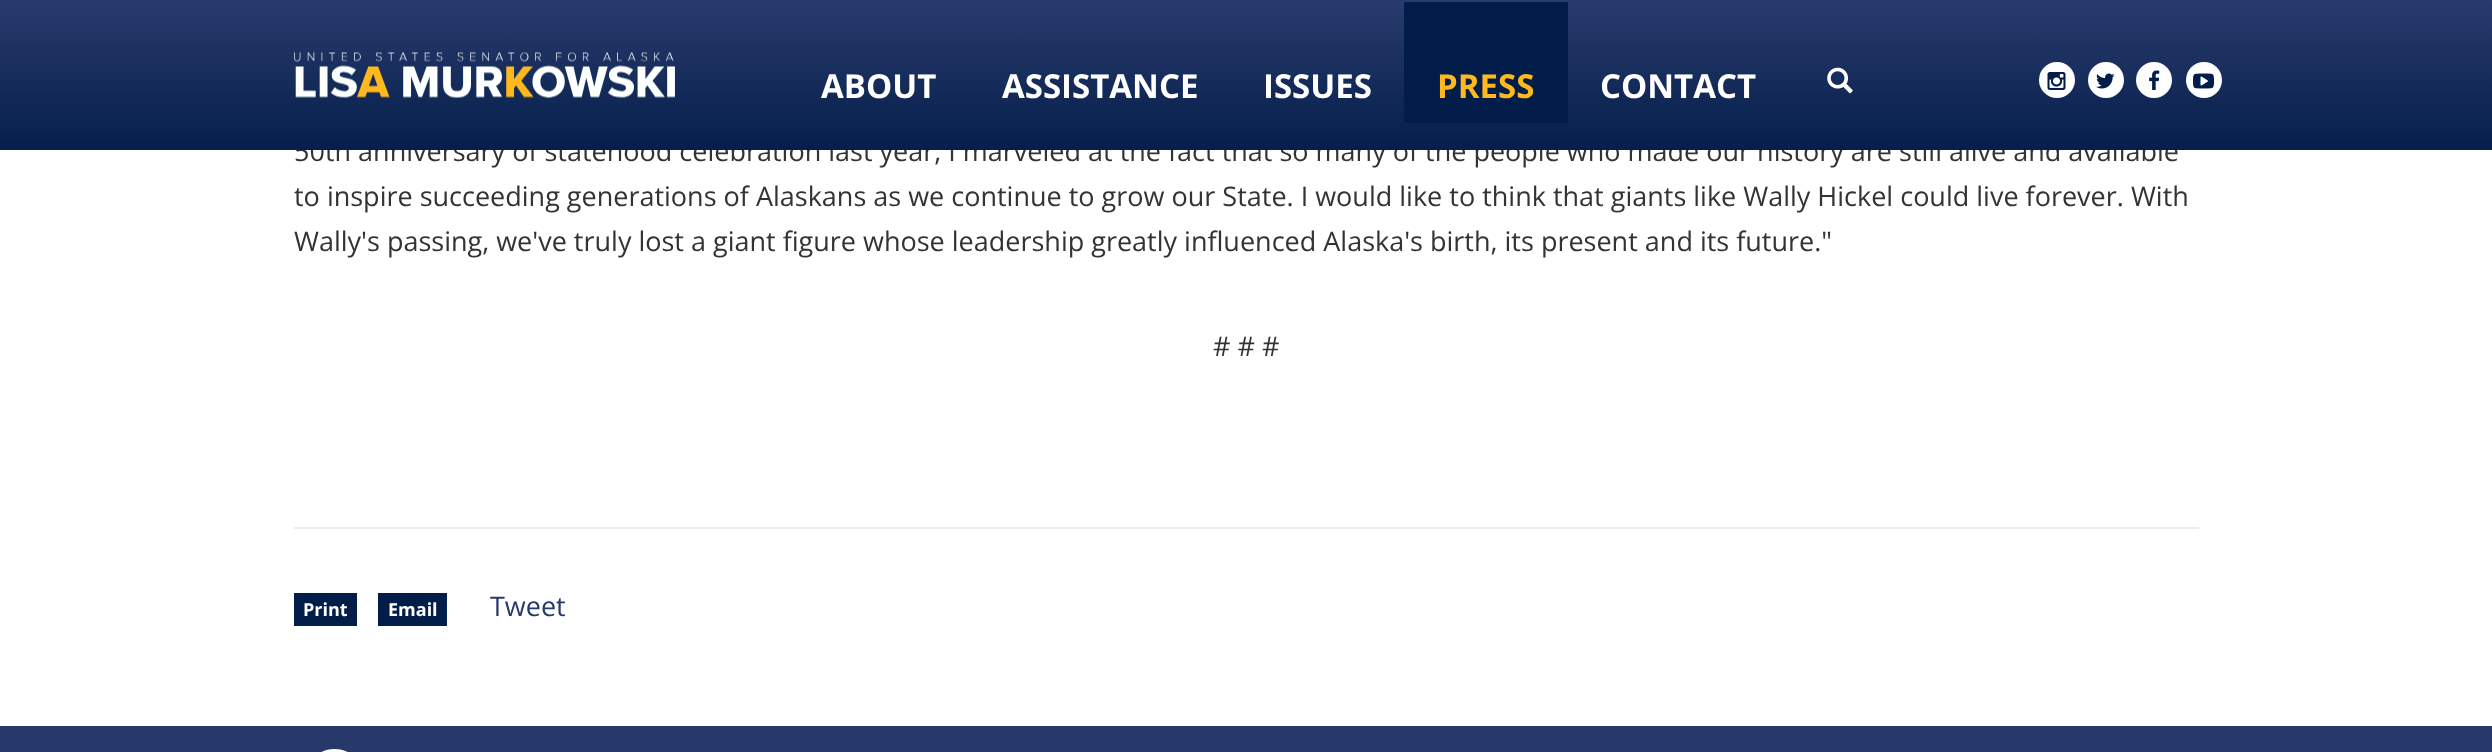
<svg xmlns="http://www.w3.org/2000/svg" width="2492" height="752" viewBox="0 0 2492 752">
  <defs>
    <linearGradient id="g1" gradientUnits="userSpaceOnUse" x1="1247" y1="0" x2="1247" y2="150"><stop offset="0" stop-color="#293b6d"/><stop offset="1" stop-color="#051f4b"/></linearGradient>
  </defs>
  <rect width="100%" height="100%" fill="#ffffff"/>
  <text x="294" y="161" font-family="Open Sans" font-size="27" fill="#333333">50th anniversary of statehood celebration last year, I marveled at the fact that so many of the people who made our history are still alive and available</text>
  <rect x="0" y="0" width="2492" height="150" fill="url(#g1)"/>
  <image x="294" y="52" width="381" height="46" href="img1.png"/>
  <text x="821" y="98" font-family="Open Sans" font-size="33" font-weight="bold" fill="#ffffff">ABOUT</text>
  <text x="1002" y="98" font-family="Open Sans" font-size="33" font-weight="bold" fill="#ffffff">ASSISTANCE</text>
  <text x="1263" y="98" font-family="Open Sans" font-size="33" font-weight="bold" fill="#ffffff">ISSUES</text>
  <rect x="1404" y="2" width="164" height="121" fill="#021d49"/>
  <text x="1437" y="98" font-family="Open Sans" font-size="33" font-weight="bold" fill="#ffb81d">PRESS</text>
  <text x="1600" y="98" font-family="Open Sans" font-size="33" font-weight="bold" fill="#ffffff">CONTACT</text>
  <image x="1827" y="67" width="26" height="27" href="img2.png"/>
  <circle cx="2057" cy="80" r="18" fill="#ffffff"/>
  <image x="2047" y="72" width="19" height="18" href="img3.png"/>
  <circle cx="2106" cy="80" r="18" fill="#ffffff"/>
  <image x="2096" y="73" width="19" height="16" href="img4.png"/>
  <circle cx="2154" cy="80" r="18" fill="#ffffff"/>
  <image x="2149" y="70" width="11" height="20" href="img5.png"/>
  <circle cx="2204" cy="80" r="18" fill="#ffffff"/>
  <image x="2193" y="73" width="21" height="16" href="img6.png"/>
  <text x="294" y="206" font-family="Open Sans" font-size="27" fill="#333333">to inspire succeeding generations of Alaskans as we continue to grow our State. I would like to think that giants like Wally Hickel could live forever. With</text>
  <text x="294" y="251" font-family="Open Sans" font-size="27" fill="#333333">Wally's passing, we've truly lost a giant figure whose leadership greatly influenced Alaska's birth, its present and its future."</text>
  <text x="1213" y="356" font-family="Open Sans" font-size="27" fill="#333333"># # #</text>
  <rect x="294" y="527" width="1905" height="2" fill="#eeeeee"/>
  <rect x="294" y="593" width="63" height="33" fill="#021d49"/>
  <text x="303" y="616" font-family="Open Sans" font-size="18" font-weight="bold" fill="#ffffff">Print</text>
  <rect x="378" y="593" width="69" height="33" fill="#021d49"/>
  <text x="388" y="616" font-family="Open Sans" font-size="18" font-weight="bold" fill="#ffffff">Email</text>
  <text x="490" y="616" font-family="Open Sans" font-size="27" fill="#26396a">Tweet</text>
  <rect x="0" y="726" width="2492" height="26" fill="#26396a"/>
  <rect x="315" y="749" width="39" height="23" rx="19.5" fill="#ffffff"/>
</svg>
